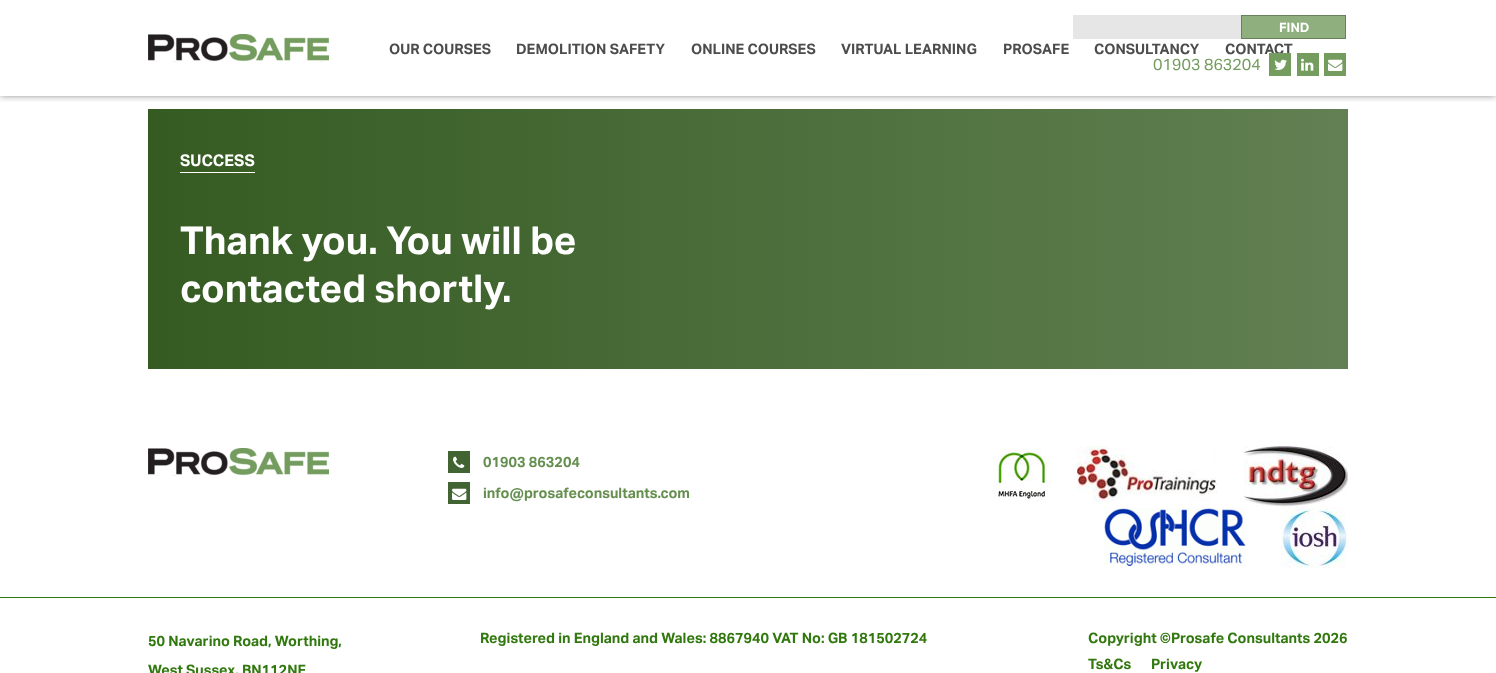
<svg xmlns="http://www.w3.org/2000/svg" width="1496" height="673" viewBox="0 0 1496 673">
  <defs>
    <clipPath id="clip1"><rect x="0" y="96" width="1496" height="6"/></clipPath>
    <filter id="blur1" x="-50%" y="-200%" width="200%" height="500%"><feGaussianBlur stdDeviation="4"/></filter>
    <linearGradient id="g1" gradientUnits="userSpaceOnUse" x1="148" y1="239" x2="1348" y2="239"><stop offset="0" stop-color="#355b22"/><stop offset="1" stop-color="#628053"/></linearGradient>
  </defs>
  <rect width="100%" height="100%" fill="#ffffff"/>
  <g clip-path="url(#clip1)">
    <rect x="0" y="-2" width="1496" height="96" fill="#4c4c4c" filter="url(#blur1)"/>
  </g>
  <rect x="1073" y="15" width="168" height="24" fill="#e6e6e6"/>
  <rect x="1241.5" y="15.5" width="104" height="23" fill="#8fb07e" stroke="#68835b"/>
  <text x="1279" y="32" font-family="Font" font-size="13" font-weight="bold" fill="#ffffff">FIND</text>
  <image x="148" y="34" width="181" height="28" href="img1.png"/>
  <text x="389" y="54" font-family="Font" font-size="14.4" font-weight="bold" fill="#4c4c4c">OUR COURSES</text>
  <text x="516" y="54" font-family="Font" font-size="14.4" font-weight="bold" fill="#4c4c4c">DEMOLITION SAFETY</text>
  <text x="691" y="54" font-family="Font" font-size="14.4" font-weight="bold" fill="#4c4c4c">ONLINE COURSES</text>
  <text x="841" y="54" font-family="Font" font-size="14.4" font-weight="bold" fill="#4c4c4c">VIRTUAL LEARNING</text>
  <text x="1003" y="54" font-family="Font" font-size="14.4" font-weight="bold" fill="#4c4c4c">PROSAFE</text>
  <text x="1094" y="54" font-family="Font" font-size="14.4" font-weight="bold" fill="#4c4c4c">CONSULTANCY</text>
  <text x="1225" y="54" font-family="Font" font-size="14.4" font-weight="bold" fill="#4c4c4c">CONTACT</text>
  <text x="1153" y="70" font-family="Font" font-size="16" fill="#739c5e">01903 863204</text>
  <rect x="1269" y="53" width="22" height="23" fill="#739c5e"/>
  <image x="1274" y="59" width="13" height="11" href="img2.png"/>
  <rect x="1297" y="53" width="22" height="23" fill="#739c5e"/>
  <image x="1301" y="58" width="13" height="13" href="img3.png"/>
  <rect x="1324" y="53" width="22" height="23" fill="#739c5e"/>
  <image x="1328" y="59" width="15" height="12" href="img4.png"/>
  <rect x="148" y="109" width="1200" height="260" fill="url(#g1)"/>
  <rect x="180" y="172" width="75" height="1" fill="#ffffff"/>
  <text x="180" y="166" font-family="Font" font-size="16" font-weight="bold" fill="#ffffff">SUCCESS</text>
  <text x="180" y="254" font-family="Font" font-size="38.4" font-weight="bold" fill="#ffffff">Thank you. You will be</text>
  <text x="180" y="302" font-family="Font" font-size="38.4" font-weight="bold" fill="#ffffff">contacted shortly.</text>
  <image x="148" y="448" width="181" height="28" href="img1.png"/>
  <rect x="448" y="451" width="22" height="22" fill="#426432"/>
  <image x="453" y="456" width="12" height="12" href="img5.png"/>
  <text x="483" y="467" font-family="Font" font-size="14.4" font-weight="bold" fill="#658f4f">01903 863204</text>
  <rect x="448" y="482" width="22" height="22" fill="#426432"/>
  <image x="452" y="488" width="15" height="12" href="img6.png"/>
  <text x="483" y="498" font-family="Font" font-size="14.4" font-weight="bold" fill="#658f4f">info@prosafeconsultants.com</text>
  <image x="993" y="449" width="56" height="54" href="img7.png"/>
  <image x="1077" y="446" width="140" height="61" href="img8.png"/>
  <image x="1244" y="446" width="104" height="61" href="img9.png"/>
  <image x="1104" y="508" width="142" height="58" href="img10.png"/>
  <image x="1281" y="507" width="67" height="61" href="img11.png"/>
  <rect x="0" y="597" width="1496" height="1" fill="#31780e"/>
  <text x="148" y="646" font-family="Font" font-size="14.4" font-weight="bold" fill="#31780e">50 Navarino Road, Worthing,</text>
  <text x="148" y="675" font-family="Font" font-size="14.4" font-weight="bold" fill="#31780e">West Sussex, BN112NF</text>
  <text x="480" y="643" font-family="Font" font-size="14.4" font-weight="bold" fill="#31780e">Registered in England and Wales: 8867940 VAT No: GB 181502724</text>
  <text x="1088" y="643" font-family="Font" font-size="14.4" font-weight="bold" fill="#31780e">Copyright ©Prosafe Consultants 2026</text>
  <text x="1088" y="669" font-family="Font" font-size="14.4" font-weight="bold" fill="#31780e">Ts&amp;Cs</text>
  <text x="1151" y="669" font-family="Font" font-size="14.4" font-weight="bold" fill="#31780e">Privacy</text>
</svg>
